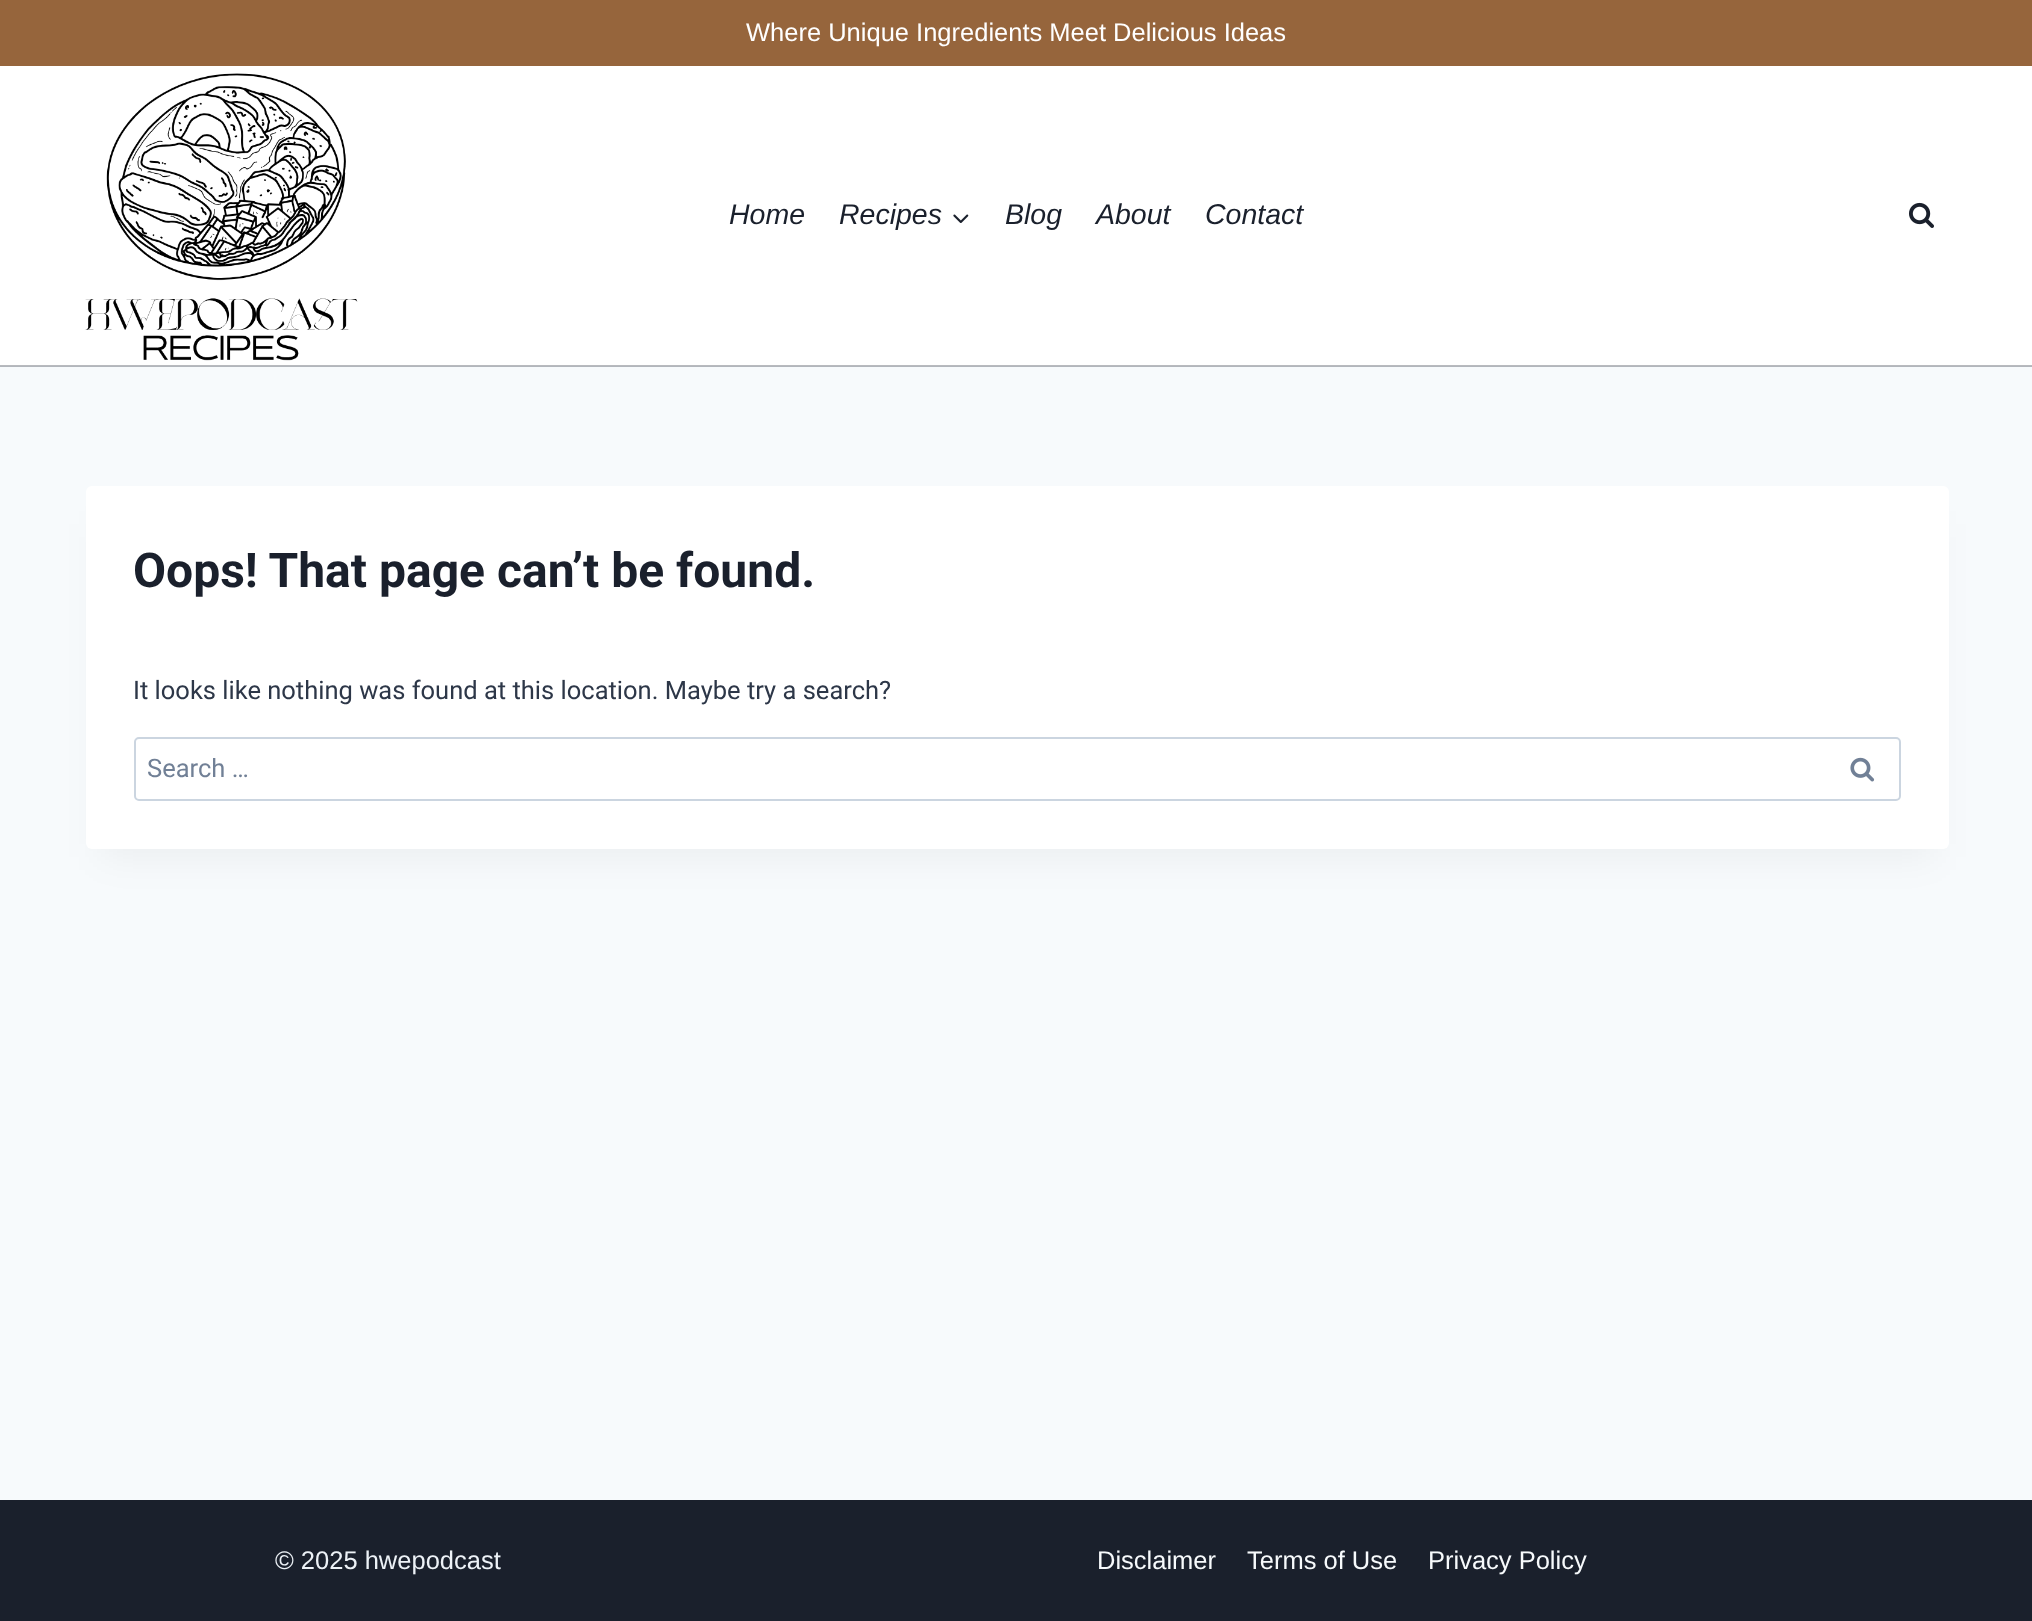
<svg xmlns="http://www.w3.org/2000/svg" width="2032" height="1621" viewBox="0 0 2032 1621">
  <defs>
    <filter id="blur1" x="-50%" y="-200%" width="200%" height="500%"><feGaussianBlur stdDeviation="19"/></filter>
  </defs>
  <rect width="100%" height="100%" fill="#f7fafc"/>
  <rect x="0" y="366" width="2032" height="1" fill="#b2b6bc"/>
  <rect x="0" y="66" width="2032" height="299" fill="#ffffff"/>
  <rect x="0" y="365" width="2032" height="1" fill="#b8babe"/>
  <rect x="0" y="0" width="2032" height="66" fill="#96653c"/>
  <text x="746" y="41" font-family="Liberation Sans" font-size="25.5" fill="#ffffff">Where Unique Ingredients Meet Delicious Ideas</text>
  <image x="85" y="73" width="273" height="288" href="img1.png"/>
  <text x="729" y="224" font-family="Liberation Sans" font-size="28.5" font-style="italic" fill="#1a202c">Home</text>
  <text x="839" y="224" font-family="Liberation Sans" font-size="28.5" font-style="italic" fill="#1a202c">Recipes</text>
  <image x="953" y="214" width="16" height="9" href="img2.png"/>
  <text x="1005" y="224" font-family="Liberation Sans" font-size="28.5" font-style="italic" fill="#1a202c">Blog</text>
  <text x="1096" y="224" font-family="Liberation Sans" font-size="28.5" font-style="italic" fill="#1a202c">About</text>
  <text x="1205" y="224" font-family="Liberation Sans" font-size="28.5" font-style="italic" fill="#1a202c">Contact</text>
  <image x="1909" y="202" width="25" height="26" href="img3.png"/>
  <rect x="101" y="524" width="1833" height="333" fill="#000000" fill-opacity="0.05" filter="url(#blur1)"/>
  <rect x="86" y="486" width="1863" height="363" rx="6" fill="#ffffff"/>
  <text x="133" y="587" font-family="Roboto" font-size="48" font-weight="bold" fill="#1a202c">Oops! That page can’t be found.</text>
  <text x="133" y="699" font-family="Roboto" font-size="25.5" fill="#2d3748">It looks like nothing was found at this location. Maybe try a search?</text>
  <rect x="135" y="738" width="1765" height="62" rx="4" fill="none" stroke="#cbd5e0" stroke-width="2"/>
  <text x="147" y="777" font-family="Roboto" font-size="25.5" fill="#718096">Search …</text>
  <image x="1850" y="757" width="25" height="25" href="img4.png"/>
  <rect x="0" y="1500" width="2032" height="121" fill="#1a202c"/>
  <text x="275" y="1569" font-family="Liberation Sans" font-size="25.5" fill="#edf2f7">© 2025 hwepodcast</text>
  <text x="1097" y="1569" font-family="Liberation Sans" font-size="25.5" fill="#f7fafc">Disclaimer</text>
  <text x="1247" y="1569" font-family="Liberation Sans" font-size="25.5" fill="#f7fafc">Terms of Use</text>
  <text x="1428" y="1569" font-family="Liberation Sans" font-size="25.5" fill="#f7fafc">Privacy Policy</text>
</svg>
